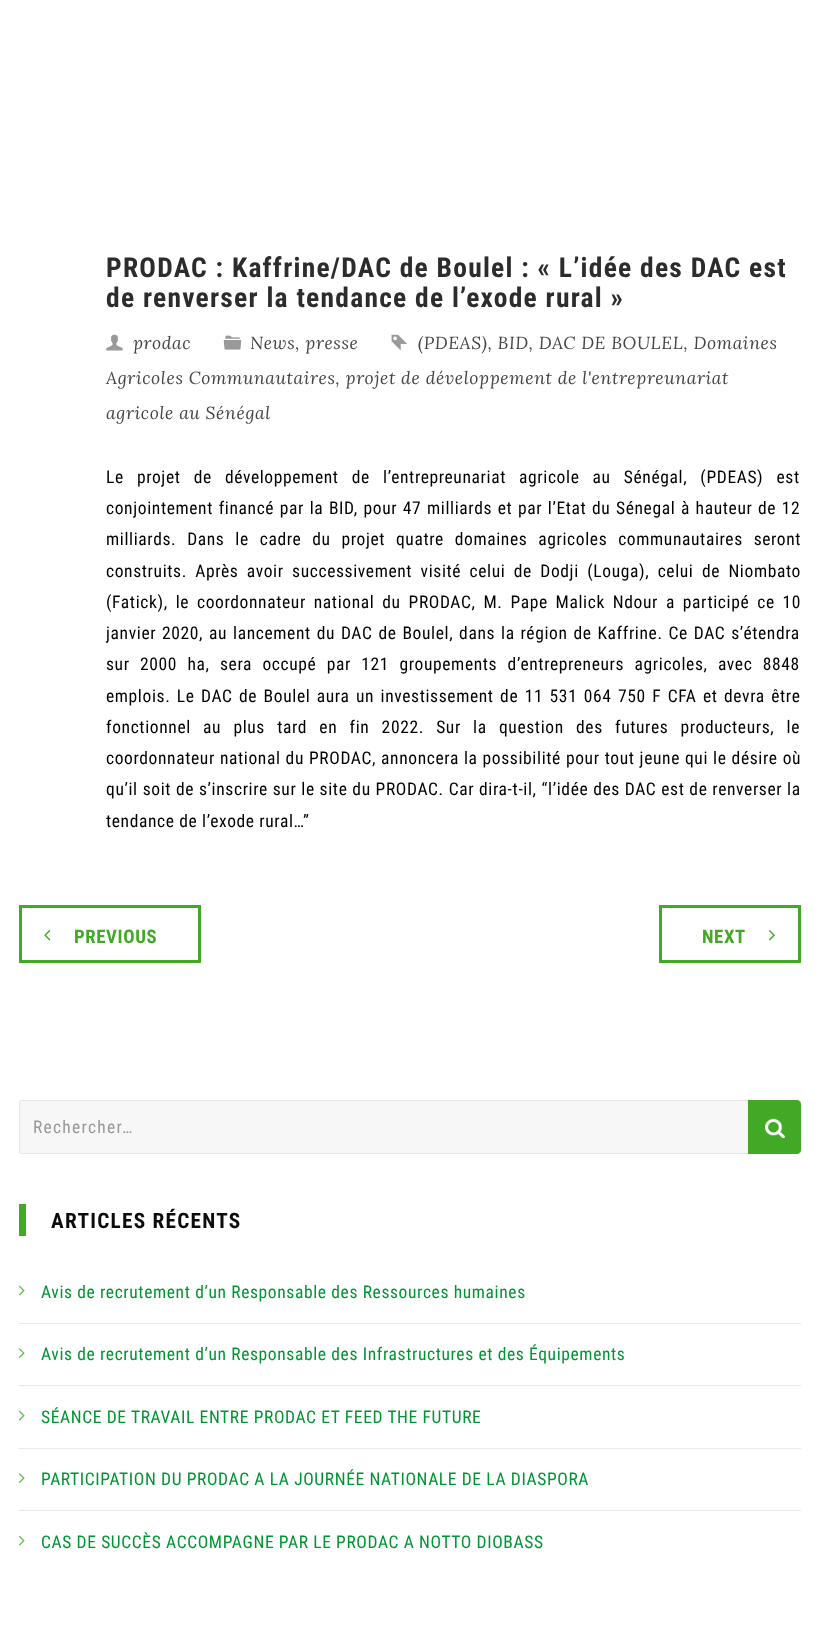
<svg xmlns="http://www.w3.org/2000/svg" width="819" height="1648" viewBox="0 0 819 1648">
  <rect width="100%" height="100%" fill="#ffffff"/>
  <text x="106" y="277" font-family="Roboto Condensed" font-size="27.5" font-weight="bold" letter-spacing="1.25" fill="#2c2c2c">PRODAC : Kaffrine/DAC de Boulel : « L’idée des DAC est</text>
  <text x="106" y="307" font-family="Roboto Condensed" font-size="27.5" font-weight="bold" letter-spacing="1.25" fill="#2c2c2c">de renverser la tendance de l’exode rural »</text>
  <image x="391" y="334" width="16" height="17" href="img1.png"/>
  <text x="418" y="349" font-family="Lora" font-size="17.5" font-style="italic" letter-spacing="0.62" fill="#444444">(PDEAS), BID, DAC DE BOULEL, Domaines</text>
  <text x="106" y="384" font-family="Lora" font-size="17.5" font-style="italic" letter-spacing="0.62" fill="#444444">Agricoles Communautaires, projet de développement de l'entrepreunariat</text>
  <text x="106" y="419" font-family="Lora" font-size="17.5" font-style="italic" letter-spacing="0.62" fill="#444444">agricole au Sénégal</text>
  <image x="106" y="334" width="17" height="17" href="img2.png"/>
  <text x="133" y="349" font-family="Lora" font-size="17.5" font-style="italic" letter-spacing="0.62" fill="#444444">prodac</text>
  <image x="223" y="335" width="19" height="15" href="img3.png"/>
  <text x="250" y="349" font-family="Lora" font-size="17.5" font-style="italic" letter-spacing="0.62" fill="#444444">News, presse</text>
  <text x="106" y="483" word-spacing="8.5" font-family="Roboto Condensed" font-size="17.5" letter-spacing="0.62" fill="#000000">Le projet de développement de l’entrepreunariat agricole au Sénégal, (PDEAS) est</text>
  <text x="106" y="514" word-spacing="1" font-family="Roboto Condensed" font-size="17.5" letter-spacing="0.62" fill="#000000">conjointement financé par la BID, pour 47 milliards et par l’Etat du Sénegal à hauteur de 12</text>
  <text x="106" y="545" word-spacing="6.25" font-family="Roboto Condensed" font-size="17.5" letter-spacing="0.62" fill="#000000">milliards. Dans le cadre du projet quatre domaines agricoles communautaires seront</text>
  <text x="106" y="577" word-spacing="3.75" font-family="Roboto Condensed" font-size="17.5" letter-spacing="0.62" fill="#000000">construits. Après avoir successivement visité celui de Dodji (Louga), celui de Niombato</text>
  <text x="106" y="608" word-spacing="3.25" font-family="Roboto Condensed" font-size="17.5" letter-spacing="0.62" fill="#000000">(Fatick), le coordonnateur national du PRODAC, M. Pape Malick Ndour a participé ce 10</text>
  <text x="106" y="639" word-spacing="1.25" font-family="Roboto Condensed" font-size="17.5" letter-spacing="0.62" fill="#000000">janvier 2020, au lancement du DAC de Boulel, dans la région de Kaffrine. Ce DAC s’étendra</text>
  <text x="106" y="670" word-spacing="5.75" font-family="Roboto Condensed" font-size="17.5" letter-spacing="0.62" fill="#000000">sur 2000 ha, sera occupé par 121 groupements d’entrepreneurs agricoles, avec 8848</text>
  <text x="106" y="702" word-spacing="1.8" font-family="Roboto Condensed" font-size="17.5" letter-spacing="0.62" fill="#000000">emplois. Le DAC de Boulel aura un investissement de 11 531 064 750 F CFA et devra être</text>
  <text x="106" y="733" word-spacing="7.6" font-family="Roboto Condensed" font-size="17.5" letter-spacing="0.62" fill="#000000">fonctionnel au plus tard en fin 2022. Sur la question des futures producteurs, le</text>
  <text x="106" y="764" word-spacing="0.4" font-family="Roboto Condensed" font-size="17.5" letter-spacing="0.62" fill="#000000">coordonnateur national du PRODAC, annoncera la possibilité pour tout jeune qui le désire où</text>
  <text x="106" y="795" word-spacing="0.25" font-family="Roboto Condensed" font-size="17.5" letter-spacing="0.62" fill="#000000">qu’il soit de s’inscrire sur le site du PRODAC. Car dira-t-il, “l’idée des DAC est de renverser la</text>
  <text x="106" y="827" font-family="Roboto Condensed" font-size="17.5" letter-spacing="0.62" fill="#000000">tendance de l’exode rural…”</text>
  <rect x="20.5" y="906.5" width="179" height="55" fill="none" stroke="#42a926" stroke-width="3"/>
  <image x="44" y="930" width="7" height="11" href="img4.png"/>
  <text x="74" y="943" font-family="Roboto Condensed" font-size="18.75" font-weight="bold" letter-spacing="0.62" fill="#42a926">PREVIOUS</text>
  <rect x="660.5" y="906.5" width="139" height="55" fill="none" stroke="#42a926" stroke-width="3"/>
  <text x="702" y="943" font-family="Roboto Condensed" font-size="18.75" font-weight="bold" letter-spacing="0.62" fill="#42a926">NEXT</text>
  <image x="768" y="930" width="7" height="11" href="img5.png"/>
  <rect x="19.5" y="1100.5" width="781" height="53" rx="2" fill="#f7f7f7" stroke="#e5e5e5"/>
  <text x="33" y="1133" font-family="Roboto Condensed" font-size="17.5" letter-spacing="1.25" fill="#999999">Rechercher…</text>
  <path d="M748 1100H797C799 1100 801 1102 801 1104V1150C801 1152 799 1154 797 1154H748Z" fill="#42a926"/>
  <image x="765" y="1118" width="20" height="21" href="img6.png"/>
  <rect x="19" y="1204" width="7" height="32" fill="#42a926"/>
  <text x="51" y="1228" font-family="Roboto Condensed" font-size="21.25" font-weight="bold" letter-spacing="1.25" fill="#0c0c0c">ARTICLES RÉCENTS</text>
  <image x="18" y="1285" width="7" height="11" href="img7.png"/>
  <text x="41" y="1298" font-family="Roboto Condensed" font-size="17.5" letter-spacing="0.62" fill="#009533">Avis de recrutement d’un Responsable des Ressources humaines</text>
  <rect x="19" y="1323" width="782" height="1" fill="#e9e9e9"/>
  <image x="18" y="1348" width="7" height="10" href="img8.png"/>
  <text x="41" y="1360" font-family="Roboto Condensed" font-size="17.5" letter-spacing="0.62" fill="#009533">Avis de recrutement d’un Responsable des Infrastructures et des Équipements</text>
  <rect x="19" y="1385" width="782" height="1" fill="#e9e9e9"/>
  <image x="18" y="1410" width="7" height="11" href="img7.png"/>
  <text x="41" y="1423" font-family="Roboto Condensed" font-size="17.5" letter-spacing="0.62" fill="#009533">SÉANCE DE TRAVAIL ENTRE PRODAC ET FEED THE FUTURE</text>
  <rect x="19" y="1448" width="782" height="1" fill="#e9e9e9"/>
  <image x="18" y="1473" width="7" height="10" href="img8.png"/>
  <text x="41" y="1485" font-family="Roboto Condensed" font-size="17.5" letter-spacing="0.62" fill="#009533">PARTICIPATION DU PRODAC A LA JOURNÉE NATIONALE DE LA DIASPORA</text>
  <rect x="19" y="1510" width="782" height="1" fill="#e9e9e9"/>
  <image x="18" y="1535" width="7" height="11" href="img7.png"/>
  <text x="41" y="1548" font-family="Roboto Condensed" font-size="17.5" letter-spacing="0.62" fill="#009533">CAS DE SUCCÈS ACCOMPAGNE PAR LE PRODAC A NOTTO DIOBASS</text>
</svg>
